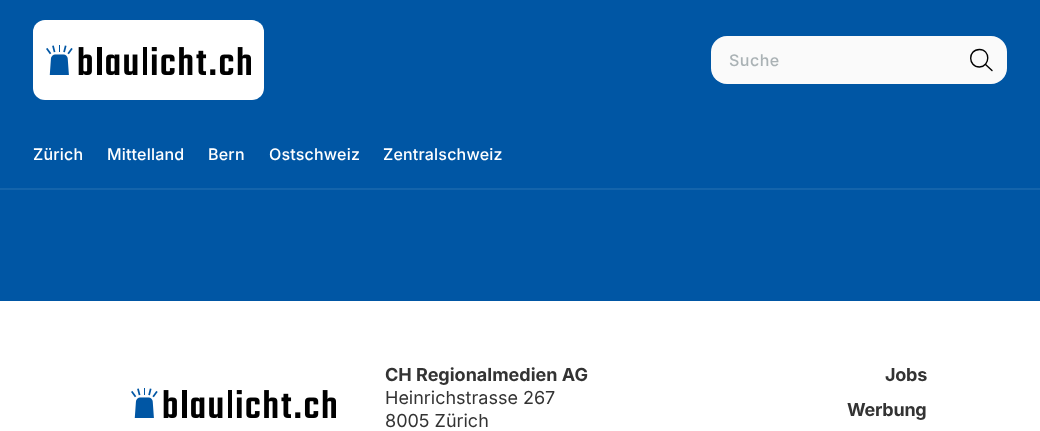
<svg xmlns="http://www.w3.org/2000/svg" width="1040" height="431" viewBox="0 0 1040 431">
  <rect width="100%" height="100%" fill="#0056a4"/>
  <rect x="0" y="188" width="1040" height="2" fill="#1464ab"/>
  <rect x="33" y="20" width="231" height="80" rx="12" fill="#ffffff"/>
  <image x="46" y="45" width="205" height="30" href="img1.png"/>
  <rect x="711" y="36" width="296" height="48" rx="16" fill="#fafafa"/>
  <text x="729" y="66" font-family="Inter" font-size="16" font-weight="500" letter-spacing="0.5" fill="#aab2b5">Suche</text>
  <path d="M979.5 49.5C967.5 49.5 968 67 979.5 67C990.5 66.5 990.5 49.5 979.5 49.5Z" fill="none" stroke="#000000" stroke-width="1.4"/>
  <path d="M985.5 64.5L992 70.5" fill="none" stroke="#000000" stroke-width="1.4" stroke-linecap="round"/>
  <text x="33" y="160" font-family="Inter" font-size="16" font-weight="500" letter-spacing="0.2" fill="#ffffff">Zürich</text>
  <text x="107" y="160" font-family="Inter" font-size="16" font-weight="500" letter-spacing="0.2" fill="#ffffff">Mittelland</text>
  <text x="208" y="160" font-family="Inter" font-size="16" font-weight="500" letter-spacing="0.2" fill="#ffffff">Bern</text>
  <text x="269" y="160" font-family="Inter" font-size="16" font-weight="500" letter-spacing="0.2" fill="#ffffff">Ostschweiz</text>
  <text x="383" y="160" font-family="Inter" font-size="16" font-weight="500" letter-spacing="0.2" fill="#ffffff">Zentralschweiz</text>
  <rect x="0" y="301" width="1040" height="130" fill="#ffffff"/>
  <image x="131" y="388" width="205" height="30" href="img1.png"/>
  <text x="385" y="381" font-family="Inter" font-size="18" font-weight="bold" fill="#333333">CH Regionalmedien AG</text>
  <text x="385" y="404" font-family="Inter" font-size="18" fill="#333333">Heinrichstrasse 267</text>
  <text x="385" y="427" font-family="Inter" font-size="18" fill="#333333">8005 Zürich</text>
  <text x="885" y="381" font-family="Inter" font-size="18" font-weight="bold" letter-spacing="-0.25" fill="#333333">Jobs</text>
  <text x="847" y="416" font-family="Inter" font-size="18" font-weight="bold" letter-spacing="-0.25" fill="#333333">Werbung</text>
</svg>
